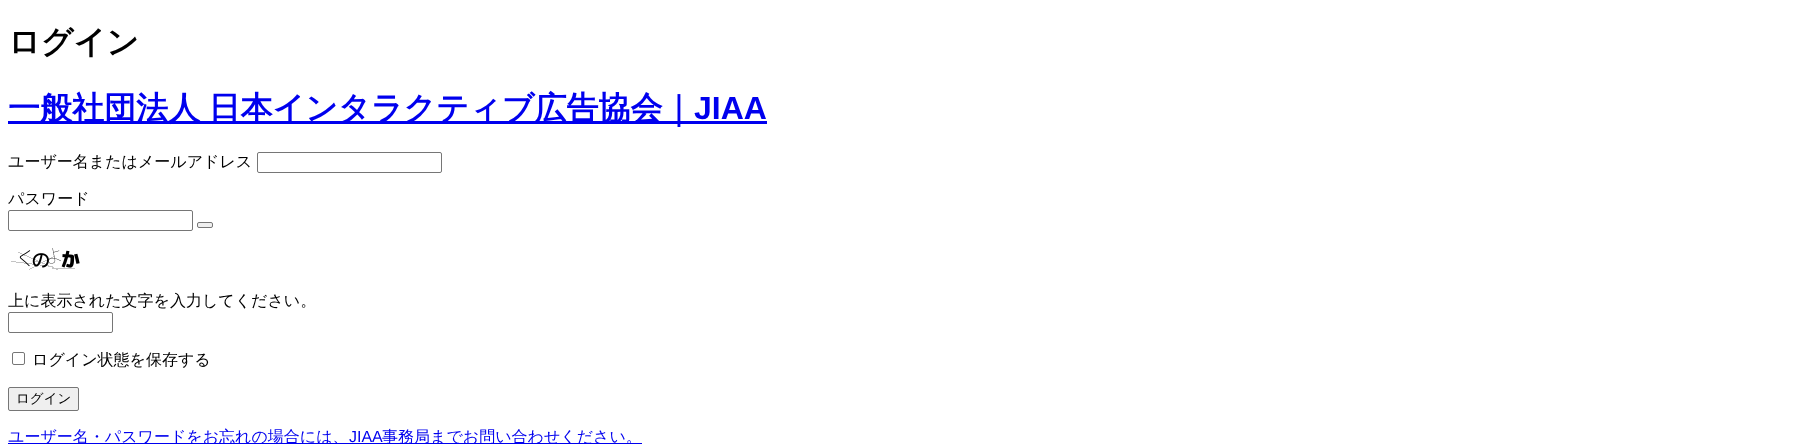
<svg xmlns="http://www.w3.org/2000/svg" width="1798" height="444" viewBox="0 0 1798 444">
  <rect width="100%" height="100%" fill="#ffffff"/>
  <text x="8" y="53" font-family="WenQuanYi Zen Hei" font-size="32" font-weight="bold" fill="#000000">ログイン</text>
  <rect x="8" y="121" width="759" height="3" fill="#0000ee"/>
  <text x="8" y="119" word-spacing="-1" font-family="WenQuanYi Zen Hei" font-size="32" font-weight="bold" fill="#0000ee">一般社団法人 日本インタラクティブ広告協会｜</text>
  <text x="694" y="119" font-family="Liberation Sans" font-size="32" font-weight="bold" fill="#0000ee">JIAA</text>
  <text x="8" y="167" font-family="WenQuanYi Zen Hei" font-size="16" font-weight="500" fill="#000000">ユーザー名またはメールアドレス</text>
  <rect x="257.5" y="152.5" width="184" height="20" rx="1.5" fill="none" stroke="#767676"/>
  <text x="8" y="204" font-family="WenQuanYi Zen Hei" font-size="16" font-weight="500" fill="#000000">パスワード</text>
  <rect x="8.5" y="210.5" width="184" height="20" rx="1.5" fill="none" stroke="#767676"/>
  <rect x="197.5" y="222.5" width="15" height="5" rx="1.5" fill="#efefef" stroke="#767676"/>
  <image x="11" y="248" width="69" height="22" href="img1.png"/>
  <text x="8" y="306" font-family="WenQuanYi Zen Hei" font-size="16" font-weight="500" fill="#000000">上に表示された文字を入力してください。</text>
  <rect x="8.5" y="312.5" width="104" height="20" rx="1.5" fill="none" stroke="#767676"/>
  <rect x="12.5" y="352.5" width="12" height="12" rx="1.5" fill="none" stroke="#767676"/>
  <text x="32" y="365" font-family="WenQuanYi Zen Hei" font-size="16" font-weight="500" fill="#000000">ログイン状態を保存する</text>
  <rect x="8.5" y="387.5" width="70" height="23" rx="1.5" fill="#efefef" stroke="#767676"/>
  <text x="16" y="403" font-family="WenQuanYi Zen Hei" font-size="13.5" font-weight="500" fill="#000000">ログイン</text>
  <rect x="8" y="443" width="634" height="1" fill="#0000ee"/>
  <text x="8" y="442" font-family="WenQuanYi Zen Hei" font-size="16" font-weight="500" fill="#0000ee">ユーザー名・パスワードをお忘れの場合には、</text>
  <text x="349" y="442" font-family="Liberation Sans" font-size="16" fill="#0000ee">JIAA</text>
  <text x="382" y="442" font-family="WenQuanYi Zen Hei" font-size="16" font-weight="500" fill="#0000ee">事務局までお問い合わせください。</text>
</svg>
